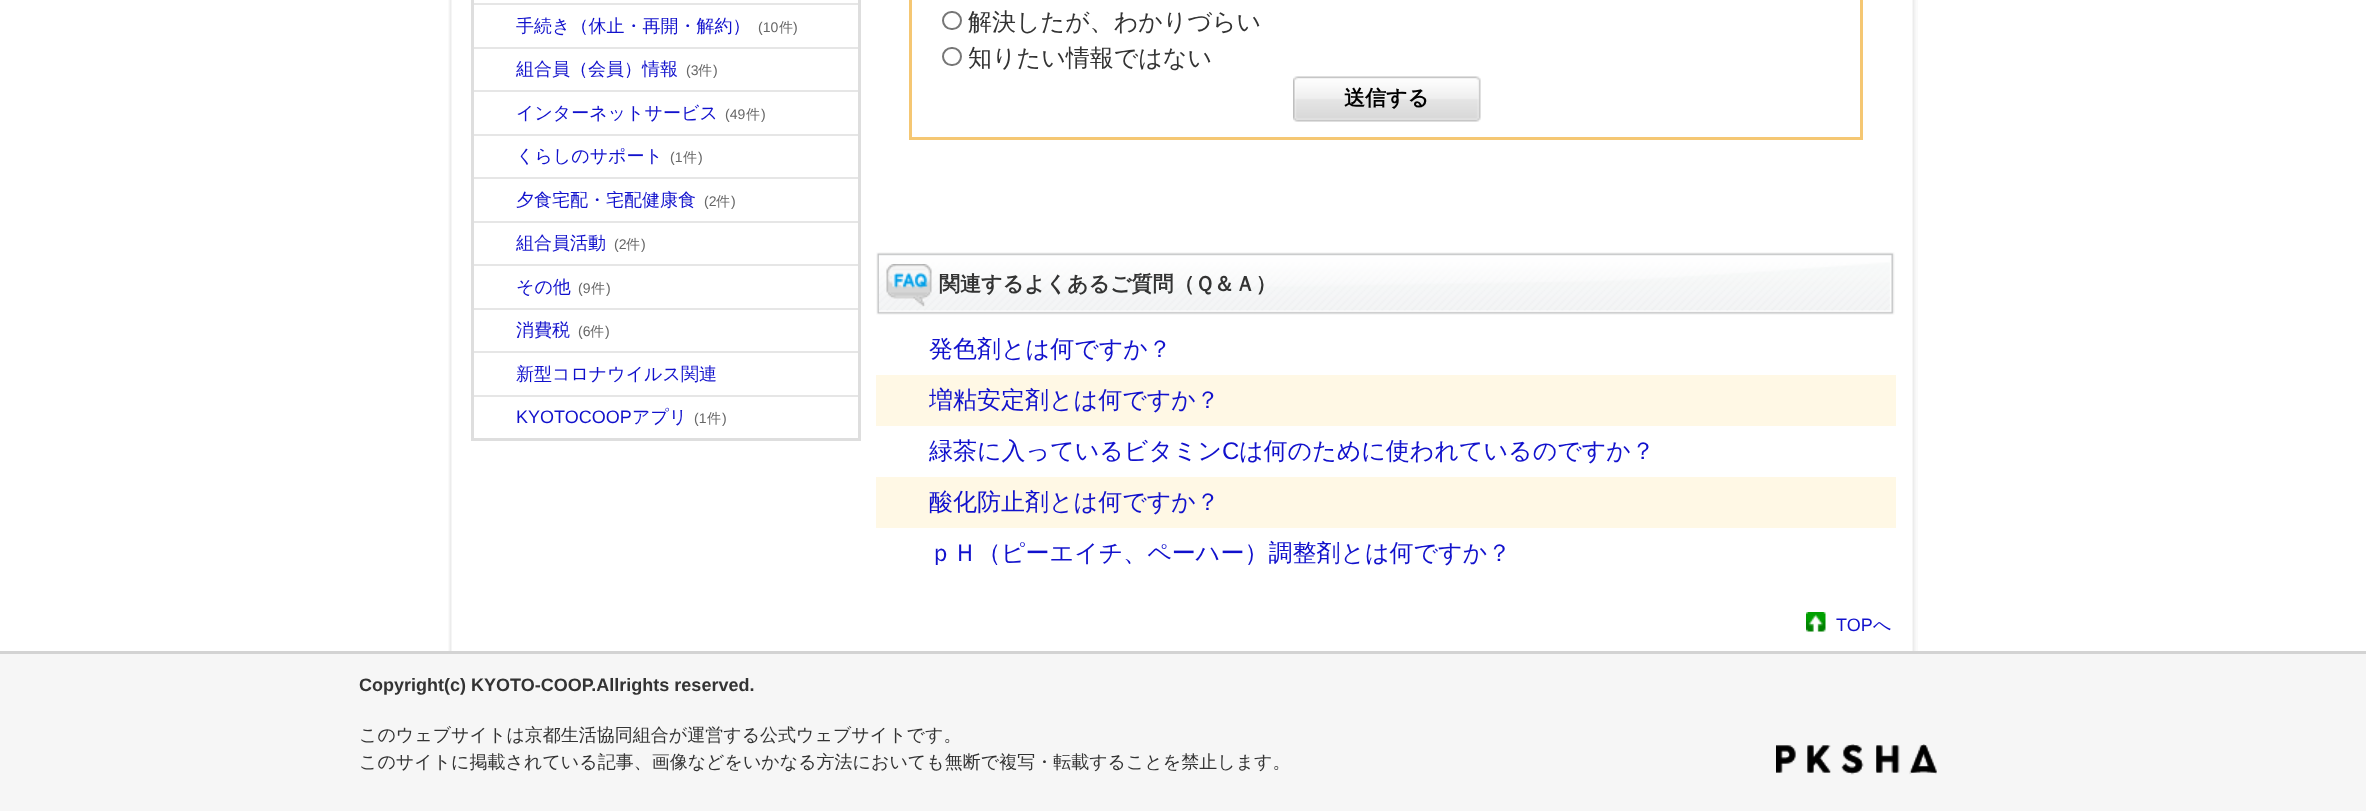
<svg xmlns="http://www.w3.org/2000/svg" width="2366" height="811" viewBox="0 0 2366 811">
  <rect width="100%" height="100%" fill="#f6f6f6"/>
  <rect x="0" y="0" width="2366" height="651" fill="#ffffff"/>
  <image x="1912" y="0" width="6" height="651" href="img1.png"/>
  <image x="448" y="0" width="4" height="651" href="img2.png"/>
  <rect x="471" y="0" width="390" height="441" fill="#dedede"/>
  <rect x="474" y="0" width="384" height="438" fill="#ffffff"/>
  <rect x="474" y="3" width="384" height="2" fill="#e6e6e6"/>
  <text x="516" y="32" font-family="WenQuanYi Zen Hei" font-size="18" font-weight="500" fill="#1111cc">手続き（休止・再開・解約）</text>
  <text x="758" y="32" font-family="Liberation Sans" font-size="14" fill="#666666">(10</text>
  <text x="779" y="32" font-family="WenQuanYi Zen Hei" font-size="14" font-weight="500" fill="#666666">件</text>
  <text x="793" y="32" font-family="Liberation Sans" font-size="14" fill="#666666">)</text>
  <rect x="474" y="47" width="384" height="2" fill="#e6e6e6"/>
  <text x="516" y="75" font-family="WenQuanYi Zen Hei" font-size="18" font-weight="500" fill="#1111cc">組合員（会員）情報</text>
  <text x="686" y="75" font-family="Liberation Sans" font-size="14" fill="#666666">(3</text>
  <text x="698" y="75" font-family="WenQuanYi Zen Hei" font-size="14" font-weight="500" fill="#666666">件</text>
  <text x="713" y="75" font-family="Liberation Sans" font-size="14" fill="#666666">)</text>
  <rect x="474" y="90" width="384" height="2" fill="#e6e6e6"/>
  <text x="516" y="119" font-family="WenQuanYi Zen Hei" font-size="18" font-weight="500" fill="#1111cc">インターネットサービス</text>
  <text x="725" y="119" font-family="Liberation Sans" font-size="14" fill="#666666">(49</text>
  <text x="746" y="119" font-family="WenQuanYi Zen Hei" font-size="14" font-weight="500" fill="#666666">件</text>
  <text x="761" y="119" font-family="Liberation Sans" font-size="14" fill="#666666">)</text>
  <rect x="474" y="134" width="384" height="2" fill="#e6e6e6"/>
  <text x="516" y="162" font-family="WenQuanYi Zen Hei" font-size="18" font-weight="500" fill="#1111cc">くらしのサポート</text>
  <text x="670" y="162" font-family="Liberation Sans" font-size="14" fill="#666666">(1</text>
  <text x="683" y="162" font-family="WenQuanYi Zen Hei" font-size="14" font-weight="500" fill="#666666">件</text>
  <text x="698" y="162" font-family="Liberation Sans" font-size="14" fill="#666666">)</text>
  <rect x="474" y="177" width="384" height="2" fill="#e6e6e6"/>
  <text x="516" y="206" font-family="WenQuanYi Zen Hei" font-size="18" font-weight="500" fill="#1111cc">夕食宅配・宅配健康食</text>
  <text x="704" y="206" font-family="Liberation Sans" font-size="14" fill="#666666">(2</text>
  <text x="716" y="206" font-family="WenQuanYi Zen Hei" font-size="14" font-weight="500" fill="#666666">件</text>
  <text x="731" y="206" font-family="Liberation Sans" font-size="14" fill="#666666">)</text>
  <rect x="474" y="221" width="384" height="2" fill="#e6e6e6"/>
  <text x="516" y="249" font-family="WenQuanYi Zen Hei" font-size="18" font-weight="500" fill="#1111cc">組合員活動</text>
  <text x="614" y="249" font-family="Liberation Sans" font-size="14" fill="#666666">(2</text>
  <text x="626" y="249" font-family="WenQuanYi Zen Hei" font-size="14" font-weight="500" fill="#666666">件</text>
  <text x="641" y="249" font-family="Liberation Sans" font-size="14" fill="#666666">)</text>
  <rect x="474" y="264" width="384" height="2" fill="#e6e6e6"/>
  <text x="516" y="293" font-family="WenQuanYi Zen Hei" font-size="18" font-weight="500" fill="#1111cc">その他</text>
  <text x="578" y="293" font-family="Liberation Sans" font-size="14" fill="#666666">(9</text>
  <text x="591" y="293" font-family="WenQuanYi Zen Hei" font-size="14" font-weight="500" fill="#666666">件</text>
  <text x="606" y="293" font-family="Liberation Sans" font-size="14" fill="#666666">)</text>
  <rect x="474" y="308" width="384" height="2" fill="#e6e6e6"/>
  <text x="516" y="336" font-family="WenQuanYi Zen Hei" font-size="18" font-weight="500" fill="#1111cc">消費税</text>
  <text x="578" y="336" font-family="Liberation Sans" font-size="14" fill="#666666">(6</text>
  <text x="590" y="336" font-family="WenQuanYi Zen Hei" font-size="14" font-weight="500" fill="#666666">件</text>
  <text x="605" y="336" font-family="Liberation Sans" font-size="14" fill="#666666">)</text>
  <rect x="474" y="351" width="384" height="2" fill="#e6e6e6"/>
  <text x="516" y="380" font-family="WenQuanYi Zen Hei" font-size="18" font-weight="500" fill="#1111cc">新型コロナウイルス関連</text>
  <rect x="474" y="395" width="384" height="2" fill="#e6e6e6"/>
  <text x="516" y="423" font-family="Liberation Sans" font-size="18" fill="#1111cc">KYOTOCOOP</text>
  <text x="632" y="423" font-family="WenQuanYi Zen Hei" font-size="18" font-weight="500" fill="#1111cc">アプリ</text>
  <text x="694" y="423" font-family="Liberation Sans" font-size="14" fill="#666666">(1</text>
  <text x="707" y="423" font-family="WenQuanYi Zen Hei" font-size="14" font-weight="500" fill="#666666">件</text>
  <text x="722" y="423" font-family="Liberation Sans" font-size="14" fill="#666666">)</text>
  <rect x="910.5" y="-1.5" width="951" height="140" fill="none" stroke="#f5c773" stroke-width="3"/>
  <rect x="943" y="12" width="18" height="17" rx="8.5" fill="none" stroke="#767676" stroke-width="2"/>
  <text x="968" y="30" font-family="WenQuanYi Zen Hei" font-size="24" font-weight="500" fill="#333333">解決したが、わかりづらい</text>
  <rect x="943" y="48" width="18" height="17" rx="8.5" fill="none" stroke="#767676" stroke-width="2"/>
  <text x="968" y="66" font-family="WenQuanYi Zen Hei" font-size="24" font-weight="500" fill="#333333">知りたい情報ではない</text>
  <image x="1293" y="76" width="188" height="46" href="img3.png"/>
  <text x="1344" y="105" font-family="WenQuanYi Zen Hei" font-size="21" font-weight="bold" fill="#000000">送信する</text>
  <image x="876" y="252" width="3" height="63" href="img4.png"/>
  <image x="879" y="252" width="1016" height="63" href="img5.png"/>
  <image x="886" y="264" width="46" height="43" href="img6.png"/>
  <text x="939" y="291" font-family="WenQuanYi Zen Hei" font-size="21" font-weight="bold" fill="#333333">関連するよくあるご質問（Ｑ＆Ａ）</text>
  <text x="929" y="357" font-family="WenQuanYi Zen Hei" font-size="24" font-weight="500" fill="#1111cc">発色剤とは何ですか？</text>
  <rect x="876" y="375" width="1020" height="51" fill="#fff8e5"/>
  <text x="929" y="408" font-family="WenQuanYi Zen Hei" font-size="24" font-weight="500" fill="#1111cc">増粘安定剤とは何ですか？</text>
  <text x="929" y="459" font-family="WenQuanYi Zen Hei" font-size="24" font-weight="500" fill="#1111cc">緑茶に入っているビタミン</text>
  <text x="1222" y="459" font-family="Liberation Sans" font-size="24" fill="#1111cc">C</text>
  <text x="1239" y="459" font-family="WenQuanYi Zen Hei" font-size="24" font-weight="500" fill="#1111cc">は何のために使われているのですか？</text>
  <rect x="876" y="477" width="1020" height="51" fill="#fff8e5"/>
  <text x="929" y="510" font-family="WenQuanYi Zen Hei" font-size="24" font-weight="500" fill="#1111cc">酸化防止剤とは何ですか？</text>
  <text x="929" y="561" font-family="WenQuanYi Zen Hei" font-size="24" font-weight="500" fill="#1111cc">ｐＨ（ピーエイチ、ペーハー）調整剤とは何ですか？</text>
  <image x="1806" y="612" width="20" height="20" href="img7.png"/>
  <text x="1836" y="631" font-family="Liberation Sans" font-size="18" fill="#1111cc">TOP</text>
  <text x="1873" y="631" font-family="WenQuanYi Zen Hei" font-size="18" font-weight="500" fill="#1111cc">へ</text>
  <rect x="0" y="651" width="2366" height="3" fill="#d3d3d3"/>
  <text x="359" y="691" font-family="Liberation Sans" font-size="18" font-weight="bold" fill="#333333">Copyright(c) KYOTO-COOP.Allrights reserved.</text>
  <text x="359" y="741" font-family="WenQuanYi Zen Hei" font-size="18" font-weight="500" fill="#333333">このウェブサイトは京都生活協同組合が運営する公式ウェブサイトです。</text>
  <text x="359" y="768" font-family="WenQuanYi Zen Hei" font-size="18" font-weight="500" fill="#333333">このサイトに掲載されている記事、画像などをいかなる方法においても無断で複写・転載することを禁止します。</text>
  <image x="1776" y="744" width="161" height="31" href="img8.png"/>
  <image x="1776" y="744" width="161" height="31" href="img9.png"/>
</svg>
